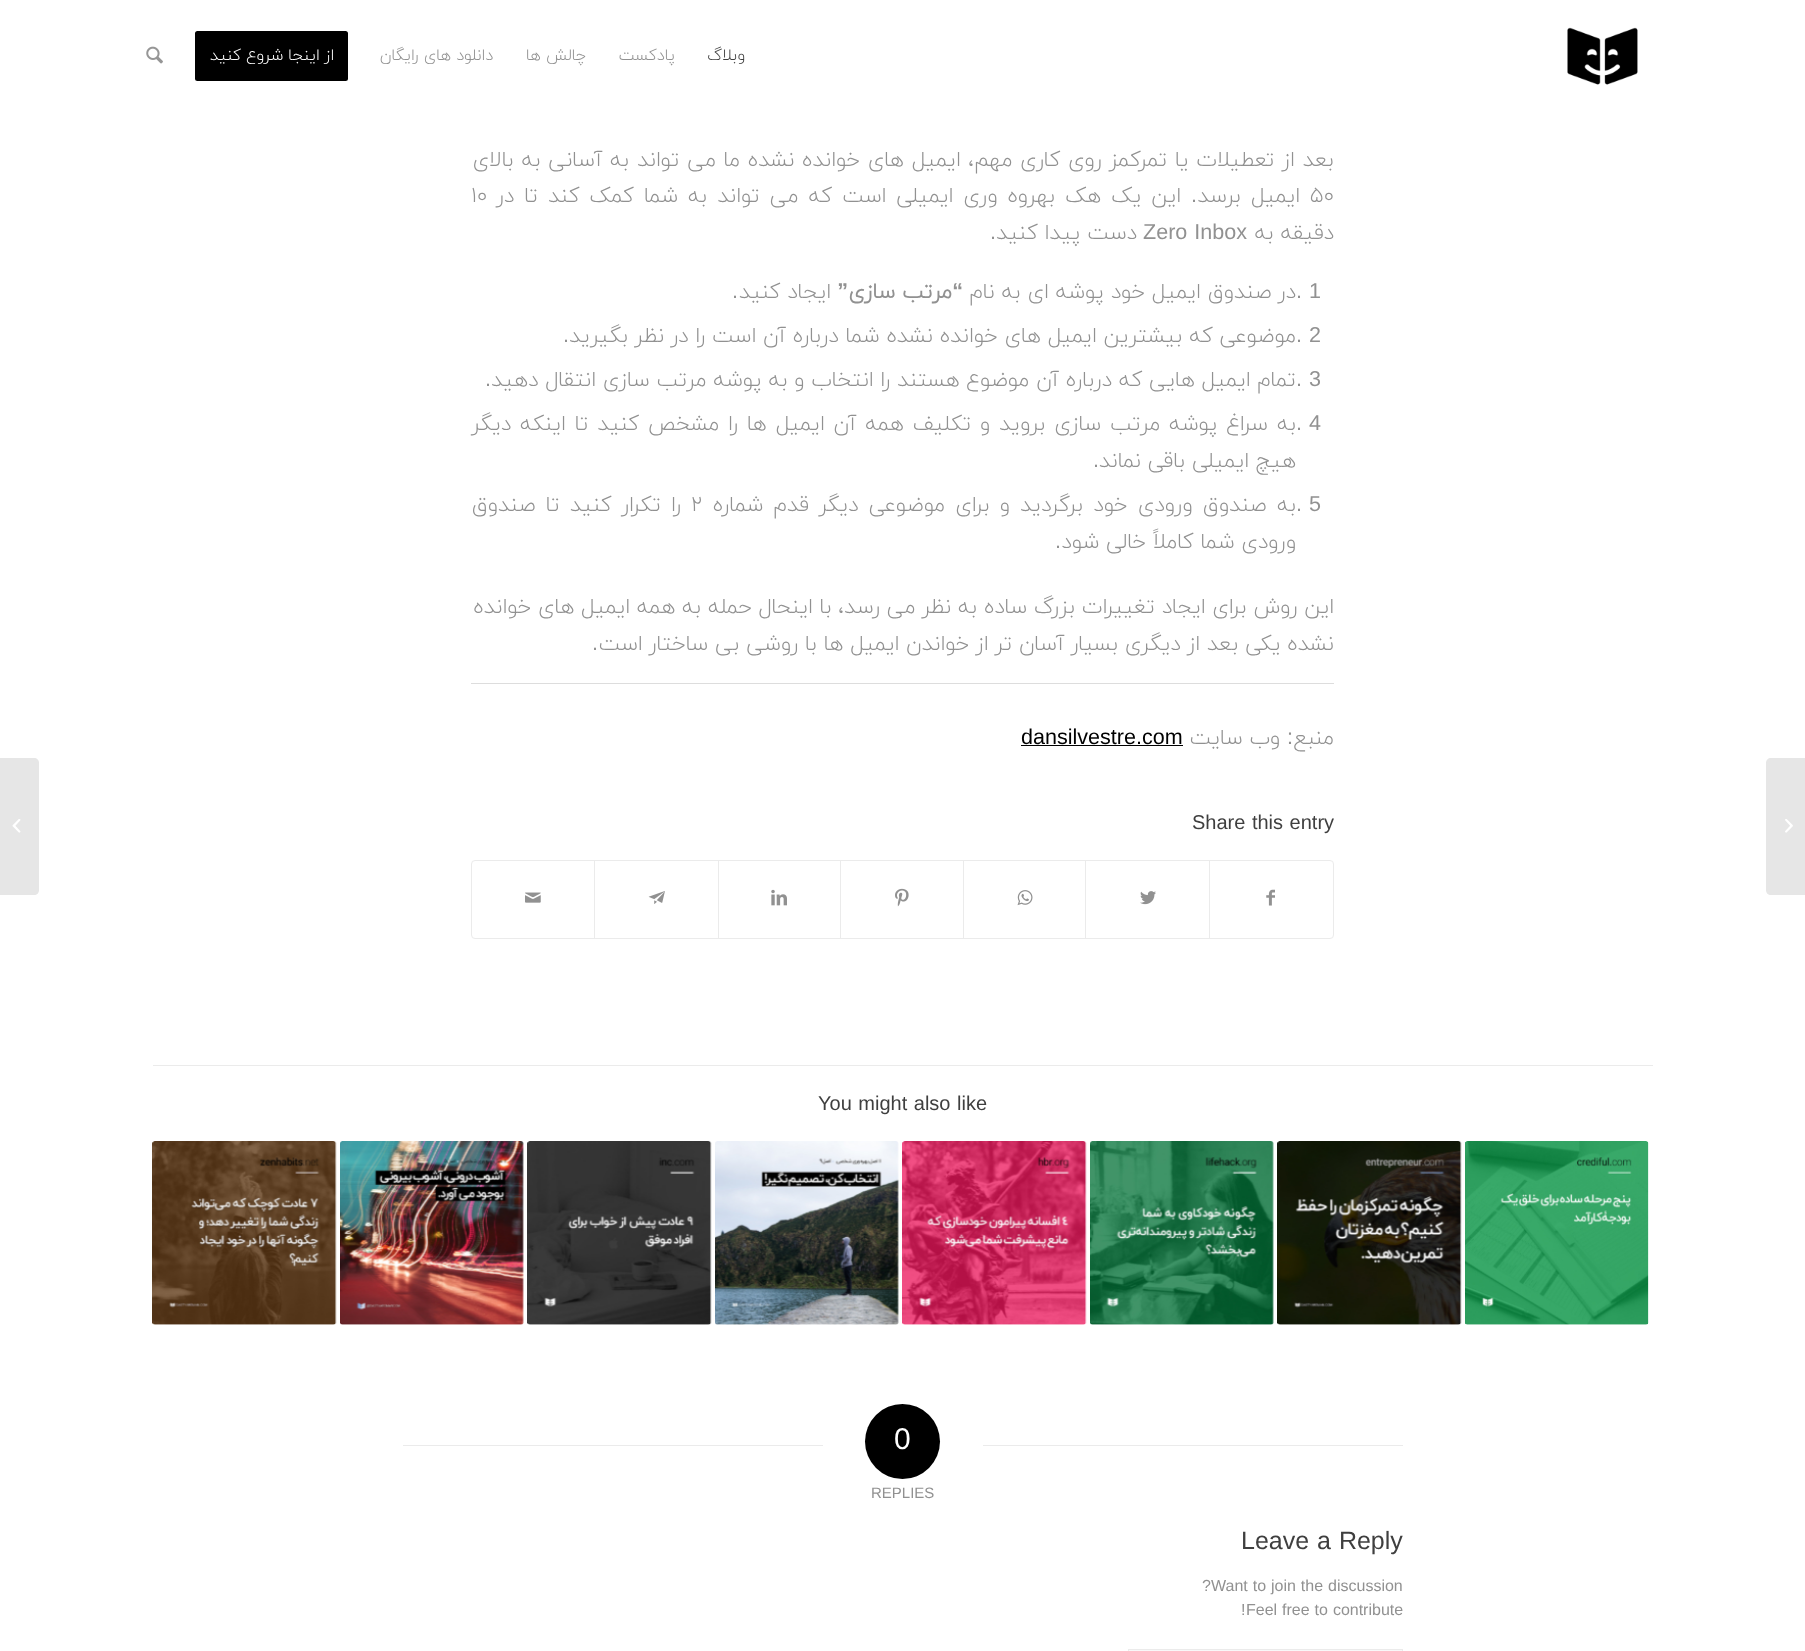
<svg xmlns="http://www.w3.org/2000/svg" width="1805" height="1651" viewBox="0 0 1805 1651">
  <rect width="100%" height="100%" fill="#ffffff"/>
  <image x="1567" y="27" width="71" height="58" href="img1.png"/>
  <text x="745" y="60" font-family="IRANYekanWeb" font-size="16.25" font-weight="300" direction="rtl" fill="#3f3f3f">وبلاگ</text>
  <text x="675" y="60" font-family="IRANYekanWeb" font-size="16.25" font-weight="300" direction="rtl" fill="#919191">پادکست</text>
  <text x="586" y="60" font-family="IRANYekanWeb" font-size="16.25" font-weight="300" direction="rtl" fill="#919191">چالش ها</text>
  <text x="493" y="60" font-family="IRANYekanWeb" font-size="16.25" font-weight="300" direction="rtl" fill="#919191">دانلود های رایگان</text>
  <rect x="196.5" y="32.5" width="150" height="47" rx="1" fill="#000000" stroke="#000000" stroke-width="3"/>
  <text x="334" y="60" font-family="IRANYekanWeb" font-size="16.25" font-weight="300" direction="rtl" fill="#ffffff">از اینجا شروع کنید</text>
  <image x="146" y="46" width="17" height="18" href="img2.png"/>
  <path d="M1771 758H1805V895H1771C1768 895 1766 893 1766 890V763C1766 760 1768 758 1771 758Z" fill="#e6e6e6"/>
  <image x="1785" y="819" width="8" height="14" href="img3.png"/>
  <text x="1334" y="166" word-spacing="0.9" font-family="IRANYekanWeb" font-size="21.55" font-weight="300" direction="rtl" fill="#919191">بعد از تعطیلات یا تمرکمز روی کاری مهم، ایمیل های خوانده نشده ما می تواند به آسانی به بالای</text>
  <text x="1310" y="202" font-family="IRANYekanWeb" font-size="21.55" font-weight="300" fill="#919191">۵۰</text>
  <text x="1300" y="202" word-spacing="3.25" font-family="IRANYekanWeb" font-size="21.55" font-weight="300" direction="rtl" fill="#919191">ایمیل برسد</text>
  <text x="1197" y="202" font-family="Liberation Sans" font-size="21.55" direction="rtl" fill="#919191">.</text>
  <text x="1181" y="202" word-spacing="3.25" font-family="IRANYekanWeb" font-size="21.55" font-weight="300" direction="rtl" fill="#919191">این یک هک بهروه وری ایمیلی است که می تواند به شما کمک کند تا در</text>
  <text x="471" y="202" font-family="IRANYekanWeb" font-size="21.55" font-weight="300" fill="#919191">۱۰</text>
  <text x="1334" y="239" font-family="IRANYekanWeb" font-size="21.55" font-weight="300" direction="rtl" fill="#919191">دقیقه به</text>
  <text x="1143" y="239" word-spacing="1" font-family="Liberation Sans" font-size="21.55" fill="#919191">Zero Inbox</text>
  <text x="1137" y="239" font-family="IRANYekanWeb" font-size="21.55" font-weight="300" direction="rtl" fill="#919191">دست پیدا کنید</text>
  <text x="996" y="239" font-family="Liberation Sans" font-size="21.55" direction="rtl" fill="#919191">.</text>
  <text x="1309" y="298" font-family="Liberation Sans" font-size="21.55" fill="#919191">1</text>
  <text x="1296" y="298" font-family="Liberation Sans" font-size="21.55" fill="#919191">.</text>
  <text x="1296" y="298" font-family="IRANYekanWeb" font-size="21.55" font-weight="300" direction="rtl" fill="#919191">در صندوق ایمیل خود پوشه ای به نام</text>
  <text x="963" y="298" font-family="Liberation Sans" font-size="21.55" font-weight="bold" direction="rtl" fill="#919191">“</text>
  <text x="952" y="298" font-family="IRANYekanWeb" font-size="21.55" font-weight="bold" direction="rtl" fill="#919191">مرتب سازی</text>
  <text x="848" y="298" font-family="Liberation Sans" font-size="21.55" font-weight="bold" direction="rtl" fill="#919191">”</text>
  <text x="831" y="298" font-family="IRANYekanWeb" font-size="21.55" font-weight="300" direction="rtl" fill="#919191">ایجاد کنید</text>
  <text x="738" y="298" font-family="Liberation Sans" font-size="21.55" direction="rtl" fill="#919191">.</text>
  <text x="1309" y="342" font-family="Liberation Sans" font-size="21.55" fill="#919191">2</text>
  <text x="1296" y="342" font-family="Liberation Sans" font-size="21.55" fill="#919191">.</text>
  <text x="1296" y="342" font-family="IRANYekanWeb" font-size="21.55" font-weight="300" direction="rtl" fill="#919191">موضوعی که بیشترین ایمیل های خوانده نشده شما درباره آن است را در نظر بگیرید</text>
  <text x="569" y="342" font-family="Liberation Sans" font-size="21.55" direction="rtl" fill="#919191">.</text>
  <text x="1309" y="386" font-family="Liberation Sans" font-size="21.55" fill="#919191">3</text>
  <text x="1296" y="386" font-family="Liberation Sans" font-size="21.55" fill="#919191">.</text>
  <text x="1296" y="386" font-family="IRANYekanWeb" font-size="21.55" font-weight="300" direction="rtl" fill="#919191">تمام ایمیل هایی که درباره آن موضوع هستند را انتخاب و به پوشه مرتب سازی انتقال دهید</text>
  <text x="491" y="386" font-family="Liberation Sans" font-size="21.55" direction="rtl" fill="#919191">.</text>
  <text x="1309" y="430" font-family="Liberation Sans" font-size="21.55" fill="#919191">4</text>
  <text x="1296" y="430" font-family="Liberation Sans" font-size="21.55" fill="#919191">.</text>
  <text x="1296" y="430" word-spacing="2.1" font-family="IRANYekanWeb" font-size="21.55" font-weight="300" direction="rtl" fill="#919191">به سراغ پوشه مرتب سازی بروید و تکلیف همه آن ایمیل ها را مشخص کنید تا اینکه دیگر</text>
  <text x="1296" y="467" font-family="IRANYekanWeb" font-size="21.55" font-weight="300" direction="rtl" fill="#919191">هیچ ایمیلی باقی نماند</text>
  <text x="1099" y="467" font-family="Liberation Sans" font-size="21.55" direction="rtl" fill="#919191">.</text>
  <text x="1309" y="511" font-family="Liberation Sans" font-size="21.55" fill="#919191">5</text>
  <text x="1296" y="511" font-family="Liberation Sans" font-size="21.55" fill="#919191">.</text>
  <text x="1296" y="511" word-spacing="3.4" font-family="IRANYekanWeb" font-size="21.55" font-weight="300" direction="rtl" fill="#919191">به صندوق ورودی خود برگردید و برای موضوعی دیگر قدم شماره</text>
  <text x="691" y="511" font-family="IRANYekanWeb" font-size="21.55" font-weight="300" fill="#919191">۲</text>
  <text x="681" y="511" word-spacing="3.4" font-family="IRANYekanWeb" font-size="21.55" font-weight="300" direction="rtl" fill="#919191">را تکرار کنید تا صندوق</text>
  <text x="1296" y="548" font-family="IRANYekanWeb" font-size="21.55" font-weight="300" direction="rtl" fill="#919191">ورودی شما کاملاً خالی شود</text>
  <text x="1061" y="548" font-family="Liberation Sans" font-size="21.55" direction="rtl" fill="#919191">.</text>
  <text x="1334" y="613" font-family="IRANYekanWeb" font-size="21.55" font-weight="300" direction="rtl" fill="#919191">این روش برای ایجاد تغییرات بزرگ ساده به نظر می رسد، با اینحال حمله به همه ایمیل های خوانده</text>
  <text x="1334" y="650" font-family="IRANYekanWeb" font-size="21.55" font-weight="300" direction="rtl" fill="#919191">نشده یکی بعد از دیگری بسیار آسان تر از خواندن ایمیل ها با روشی بی ساختار است</text>
  <text x="598" y="650" font-family="Liberation Sans" font-size="21.55" direction="rtl" fill="#919191">.</text>
  <rect x="471" y="683" width="863" height="1" fill="#dddddd"/>
  <text x="1334" y="744" font-family="IRANYekanWeb" font-size="21.55" font-weight="300" direction="rtl" fill="#919191">منبع</text>
  <text x="1293" y="744" font-family="Liberation Sans" font-size="21.55" direction="rtl" fill="#919191">:</text>
  <text x="1280" y="744" font-family="IRANYekanWeb" font-size="21.55" font-weight="300" direction="rtl" fill="#919191">وب سایت</text>
  <text x="1021" y="744" font-family="Liberation Sans" font-size="21.55" fill="#000000">dansilvestre.com</text>
  <rect x="1021" y="745" width="162" height="1" fill="#000000"/>
  <text x="1192" y="829" word-spacing="1" font-family="Liberation Sans" font-size="20" fill="#3f3f3f">Share this entry</text>
  <rect x="471.5" y="860.5" width="862" height="78" rx="3.5" fill="none" stroke="#ebebeb"/>
  <image x="1266" y="889" width="9" height="17" href="img4.png"/>
  <rect x="1209" y="861" width="1" height="77" fill="#ebebeb"/>
  <image x="1140" y="891" width="16" height="14" href="img5.png"/>
  <rect x="1085" y="861" width="1" height="77" fill="#ebebeb"/>
  <image x="1017" y="890" width="16" height="16" href="img6.png"/>
  <rect x="963" y="861" width="1" height="77" fill="#ebebeb"/>
  <image x="895" y="888" width="14" height="19" href="img7.png"/>
  <rect x="840" y="861" width="1" height="77" fill="#ebebeb"/>
  <image x="771" y="889" width="16" height="17" href="img8.png"/>
  <rect x="718" y="861" width="1" height="77" fill="#ebebeb"/>
  <image x="648" y="891" width="17" height="13" href="img9.png"/>
  <rect x="594" y="861" width="1" height="77" fill="#ebebeb"/>
  <image x="525" y="892" width="16" height="11" href="img10.png"/>
  <rect x="153" y="1065" width="1500" height="1" fill="#ebebeb"/>
  <text x="818" y="1110" word-spacing="1" font-family="Liberation Sans" font-size="20" fill="#3f3f3f">You might also like</text>
  <image x="1465" y="1141" width="184" height="184" href="img11.png"/>
  <image x="1277" y="1141" width="185" height="184" href="img12.png"/>
  <image x="1090" y="1141" width="184" height="184" href="img13.png"/>
  <image x="902" y="1141" width="185" height="184" href="img14.png"/>
  <image x="715" y="1141" width="184" height="184" href="img15.png"/>
  <image x="527" y="1141" width="185" height="184" href="img16.png"/>
  <image x="340" y="1141" width="184" height="184" href="img17.png"/>
  <image x="152" y="1141" width="185" height="184" href="img18.png"/>
  <rect x="983" y="1445" width="420" height="1" fill="#ebebeb"/>
  <circle cx="902.5" cy="1441.5" r="37.5" fill="#000000"/>
  <text x="894" y="1449" font-family="Liberation Sans" font-size="30" fill="#ffffff">0</text>
  <rect x="403" y="1445" width="420" height="1" fill="#ebebeb"/>
  <text x="871" y="1498" font-family="Liberation Sans" font-size="15" fill="#919191">REPLIES</text>
  <text x="1241" y="1549" word-spacing="1" font-family="Liberation Sans" font-size="25" fill="#3f3f3f">Leave a Reply</text>
  <text x="1211" y="1591" word-spacing="0.5" font-family="Liberation Sans" font-size="16" fill="#919191">Want to join the discussion</text>
  <text x="1202" y="1591" font-family="Liberation Sans" font-size="16" fill="#919191">?</text>
  <text x="1246" y="1615" word-spacing="0.5" font-family="Liberation Sans" font-size="16" fill="#919191">Feel free to contribute</text>
  <text x="1241" y="1615" font-family="Liberation Sans" font-size="16" fill="#919191">!</text>
  <rect x="1128.5" y="1649.5" width="274" height="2" fill="#f8f8f8" stroke="#ebebeb"/>
  <path d="M0 758H34C37 758 39 760 39 763V890C39 893 37 895 34 895H0Z" fill="#e6e6e6"/>
  <image x="12" y="819" width="9" height="14" href="img19.png"/>
</svg>
